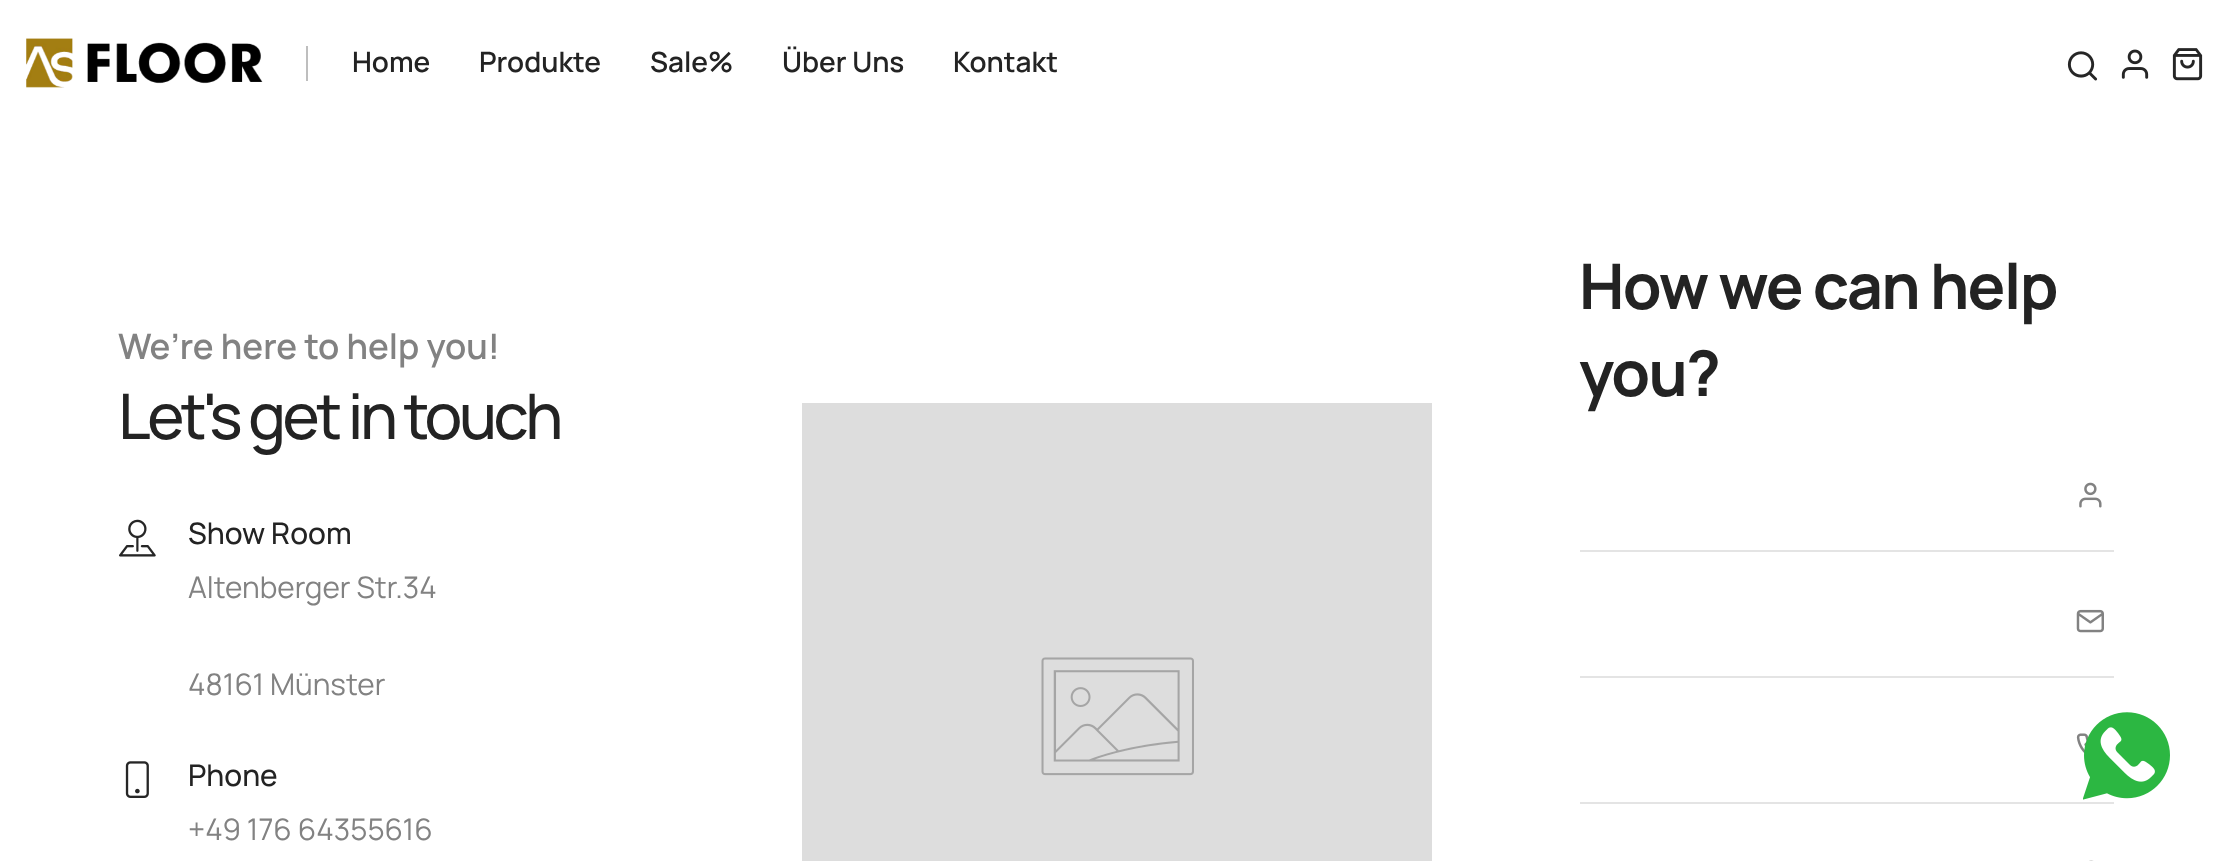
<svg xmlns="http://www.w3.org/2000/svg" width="2231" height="861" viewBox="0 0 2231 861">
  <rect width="100%" height="100%" fill="#ffffff"/>
  <image x="26" y="38" width="237" height="50" href="img1.png"/>
  <rect x="306" y="46" width="2" height="35" fill="#bebebe"/>
  <text x="352" y="72" font-family="Manrope" font-size="28" font-weight="600" fill="#232323">Home</text>
  <text x="479" y="72" font-family="Manrope" font-size="28" font-weight="600" fill="#232323">Produkte</text>
  <text x="650" y="72" font-family="Manrope" font-size="28" font-weight="600" fill="#232323">Sale%</text>
  <text x="782" y="72" font-family="Manrope" font-size="28" font-weight="600" fill="#232323">Über Uns</text>
  <text x="953" y="72" font-family="Manrope" font-size="28" font-weight="600" fill="#232323">Kontakt</text>
  <image x="2067" y="51" width="31" height="30" href="img2.png"/>
  <image x="2121" y="49" width="28" height="30" href="img3.png"/>
  <image x="2172" y="48" width="31" height="33" href="img4.png"/>
  <text x="118" y="359" font-family="Manrope" font-size="35" font-weight="600" fill="#828282">We’re here to help you!</text>
  <text x="118" y="439" font-family="Manrope" font-size="63" font-weight="500" letter-spacing="-3.5" fill="#232323">Let's get in touch</text>
  <image x="119" y="519" width="37" height="38" href="img5.png"/>
  <text x="188" y="544" font-family="Manrope" font-size="29.75" font-weight="500" fill="#232323">Show Room</text>
  <text x="188" y="598" font-family="Manrope" font-size="29.75" fill="#828282">Altenberger Str.34</text>
  <text x="188" y="695" font-family="Manrope" font-size="29.75" fill="#828282">48161 Münster</text>
  <image x="125" y="761" width="24" height="37" href="img6.png"/>
  <text x="188" y="786" font-family="Manrope" font-size="29.75" font-weight="500" fill="#232323">Phone</text>
  <text x="188" y="840" font-family="Manrope" font-size="29.75" fill="#828282">+49 176 64355616</text>
  <rect x="802" y="403" width="630" height="458" fill="#dddddd"/>
  <image x="1041" y="657" width="153" height="119" href="img7.png"/>
  <text x="1579" y="309" font-family="Manrope" font-size="63" font-weight="bold" letter-spacing="-1.75" fill="#232323">How we can help</text>
  <text x="1579" y="396" font-family="Manrope" font-size="63" font-weight="bold" letter-spacing="-1.75" fill="#232323">you?</text>
  <image x="2079" y="482" width="23" height="26" href="img8.png"/>
  <rect x="1580" y="550" width="534" height="2" fill="#e4e4e4"/>
  <image x="2076" y="609" width="28" height="24" href="img9.png"/>
  <rect x="1580" y="676" width="534" height="2" fill="#e4e4e4"/>
  <image x="2076" y="733" width="13" height="21" href="img10.png"/>
  <rect x="1580" y="802" width="534" height="2" fill="#e4e4e4"/>
  <image x="2089" y="860" width="5" height="1" href="img11.png"/>
  <image x="2083" y="712" width="87" height="88" href="img12.png"/>
</svg>
